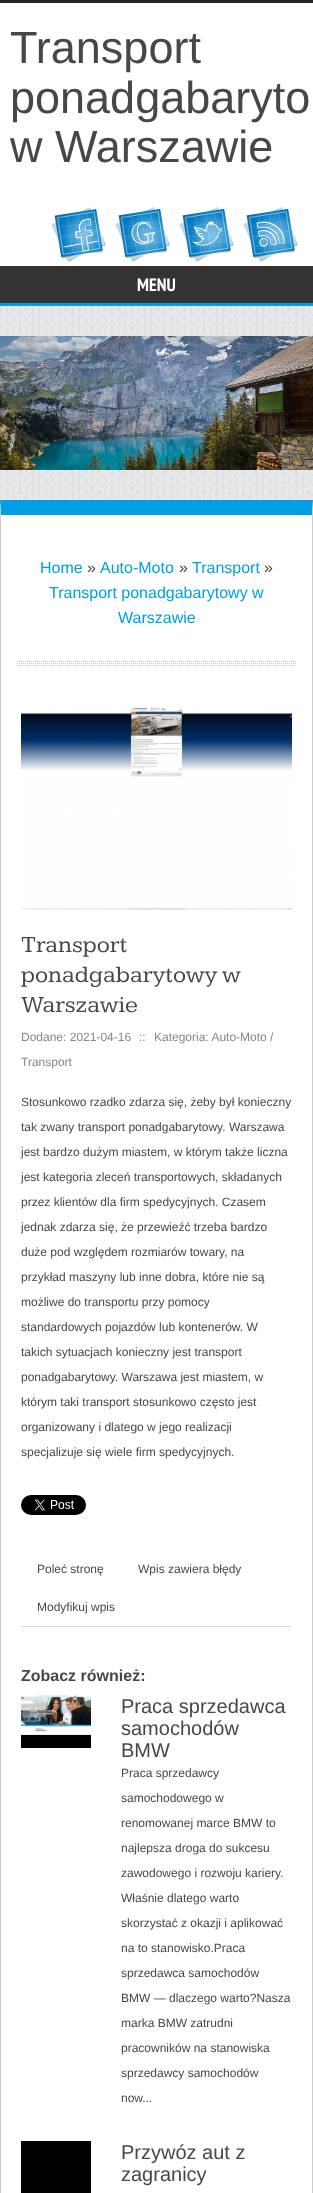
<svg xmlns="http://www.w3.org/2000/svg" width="313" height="2193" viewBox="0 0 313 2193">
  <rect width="100%" height="100%" fill="#ffffff"/>
  <image x="0" y="306" width="313" height="209" href="img1.png"/>
  <rect x="0" y="0" width="313" height="3" fill="#252525"/>
  <rect x="0" y="303" width="313" height="3" fill="#009fe3"/>
  <text x="10" y="63" font-family="Liberation Sans" font-size="45" fill="#474747">Transport</text>
  <text x="10" y="113" font-family="Liberation Sans" font-size="45" fill="#474747">ponadgabaryto</text>
  <text x="10" y="162" font-family="Liberation Sans" font-size="45" fill="#474747">w Warszawie</text>
  <image x="51" y="207" width="55" height="55" href="img2.png"/>
  <image x="115" y="207" width="55" height="55" href="img3.png"/>
  <image x="179" y="207" width="55" height="55" href="img4.png"/>
  <image x="243" y="207" width="55" height="55" href="img5.png"/>
  <rect x="0" y="266" width="313" height="37" fill="#333333"/>
  <text x="137" y="291" font-family="PT Sans Narrow" font-size="18" font-weight="bold" fill="#ffffff">MENU</text>
  <image x="0" y="336" width="313" height="134" href="img6.png"/>
  <path d="M0 500H313L312 515H1Z" fill="#009fe3"/>
  <path d="M313 500V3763L312 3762V515Z" fill="#cccccc"/>
  <path d="M0 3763V500L1 515V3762Z" fill="#cccccc"/>
  <text x="40" y="573" font-family="Liberation Sans" font-size="16" fill="#009fe3">Home</text>
  <text x="87" y="573" font-family="Liberation Sans" font-size="16" fill="#474747">»</text>
  <text x="100" y="573" font-family="Liberation Sans" font-size="16" fill="#009fe3">Auto-Moto</text>
  <text x="179" y="573" font-family="Liberation Sans" font-size="16" fill="#474747">»</text>
  <text x="192" y="573" font-family="Liberation Sans" font-size="16" fill="#009fe3">Transport</text>
  <text x="264" y="573" font-family="Liberation Sans" font-size="16" fill="#474747">»</text>
  <text x="49" y="598" font-family="Liberation Sans" font-size="16" fill="#009fe3">Transport ponadgabarytowy w</text>
  <text x="118" y="623" font-family="Liberation Sans" font-size="16" fill="#009fe3">Warszawie</text>
  <image x="17" y="661" width="279" height="5" href="img7.png"/>
  <image x="21" y="707" width="271" height="203" href="img8.png"/>
  <text x="21" y="952" font-family="Kameron" font-size="24" fill="#474747">Transport</text>
  <text x="21" y="982" font-family="Kameron" font-size="24" fill="#474747">ponadgabarytowy w</text>
  <text x="21" y="1012" font-family="Kameron" font-size="24" fill="#474747">Warszawie</text>
  <text x="21" y="1041" font-family="Liberation Sans" font-size="12" fill="#878787">Dodane: 2021-04-16</text>
  <text x="139" y="1041" font-family="Liberation Sans" font-size="12" fill="#878787">::</text>
  <text x="154" y="1041" font-family="Liberation Sans" font-size="12" fill="#878787">Kategoria: Auto-Moto /</text>
  <text x="21" y="1066" font-family="Liberation Sans" font-size="12" fill="#878787">Transport</text>
  <text x="21" y="1106" font-family="Liberation Sans" font-size="12" fill="#474747">Stosunkowo rzadko zdarza się, żeby był konieczny</text>
  <text x="21" y="1131" font-family="Liberation Sans" font-size="12" fill="#474747">tak zwany transport ponadgabarytowy. Warszawa</text>
  <text x="21" y="1156" font-family="Liberation Sans" font-size="12" fill="#474747">jest bardzo dużym miastem, w którym także liczna</text>
  <text x="21" y="1181" font-family="Liberation Sans" font-size="12" fill="#474747">jest kategoria zleceń transportowych, składanych</text>
  <text x="21" y="1206" font-family="Liberation Sans" font-size="12" fill="#474747">przez klientów dla firm spedycyjnych. Czasem</text>
  <text x="21" y="1231" font-family="Liberation Sans" font-size="12" fill="#474747">jednak zdarza się, że przewieźć trzeba bardzo</text>
  <text x="21" y="1256" font-family="Liberation Sans" font-size="12" fill="#474747">duże pod względem rozmiarów towary, na</text>
  <text x="21" y="1281" font-family="Liberation Sans" font-size="12" fill="#474747">przykład maszyny lub inne dobra, które nie są</text>
  <text x="21" y="1306" font-family="Liberation Sans" font-size="12" fill="#474747">możliwe do transportu przy pomocy</text>
  <text x="21" y="1331" font-family="Liberation Sans" font-size="12" fill="#474747">standardowych pojazdów lub kontenerów. W</text>
  <text x="21" y="1356" font-family="Liberation Sans" font-size="12" fill="#474747">takich sytuacjach konieczny jest transport</text>
  <text x="21" y="1381" font-family="Liberation Sans" font-size="12" fill="#474747">ponadgabarytowy. Warszawa jest miastem, w</text>
  <text x="21" y="1406" font-family="Liberation Sans" font-size="12" fill="#474747">którym taki transport stosunkowo często jest</text>
  <text x="21" y="1431" font-family="Liberation Sans" font-size="12" fill="#474747">organizowany i dlatego w jego realizacji</text>
  <text x="21" y="1456" font-family="Liberation Sans" font-size="12" fill="#474747">specjalizuje się wiele firm spedycyjnych.</text>
  <image x="21" y="1495" width="65" height="20" href="img9.png"/>
  <rect x="21" y="1626" width="271" height="1" fill="#dddddd"/>
  <text x="37" y="1573" font-family="Liberation Sans" font-size="12" fill="#474747">Poleć stronę</text>
  <text x="138" y="1573" font-family="Liberation Sans" font-size="12" fill="#474747">Wpis zawiera błędy</text>
  <text x="37" y="1611" font-family="Liberation Sans" font-size="12" fill="#474747">Modyfikuj wpis</text>
  <text x="21" y="1681" font-family="Liberation Sans" font-size="16" font-weight="bold" fill="#474747">Zobacz również:</text>
  <image x="21" y="1695" width="70" height="53" href="img10.png"/>
  <text x="121" y="1713" font-family="Liberation Sans" font-size="20" fill="#474747">Praca sprzedawca</text>
  <text x="121" y="1735" font-family="Liberation Sans" font-size="20" fill="#474747">samochodów</text>
  <text x="121" y="1757" font-family="Liberation Sans" font-size="20" fill="#474747">BMW</text>
  <text x="121" y="1777" font-family="Liberation Sans" font-size="12" fill="#474747">Praca sprzedawcy</text>
  <text x="121" y="1802" font-family="Liberation Sans" font-size="12" fill="#474747">samochodowego w</text>
  <text x="121" y="1827" font-family="Liberation Sans" font-size="12" fill="#474747">renomowanej marce BMW to</text>
  <text x="121" y="1852" font-family="Liberation Sans" font-size="12" fill="#474747">najlepsza droga do sukcesu</text>
  <text x="121" y="1877" font-family="Liberation Sans" font-size="12" fill="#474747">zawodowego i rozwoju kariery.</text>
  <text x="121" y="1902" font-family="Liberation Sans" font-size="12" fill="#474747">Właśnie dlatego warto</text>
  <text x="121" y="1927" font-family="Liberation Sans" font-size="12" fill="#474747">skorzystać z okazji i aplikować</text>
  <text x="121" y="1952" font-family="Liberation Sans" font-size="12" fill="#474747">na to stanowisko.Praca</text>
  <text x="121" y="1977" font-family="Liberation Sans" font-size="12" fill="#474747">sprzedawca samochodów</text>
  <text x="121" y="2002" font-family="Liberation Sans" font-size="12" fill="#474747">BMW — dlaczego warto?Nasza</text>
  <text x="121" y="2027" font-family="Liberation Sans" font-size="12" fill="#474747">marka BMW zatrudni</text>
  <text x="121" y="2052" font-family="Liberation Sans" font-size="12" fill="#474747">pracowników na stanowiska</text>
  <text x="121" y="2077" font-family="Liberation Sans" font-size="12" fill="#474747">sprzedawcy samochodów</text>
  <text x="121" y="2102" font-family="Liberation Sans" font-size="12" fill="#474747">now...</text>
  <rect x="21" y="2141" width="70" height="52" fill="#000000"/>
  <text x="121" y="2159" font-family="Liberation Sans" font-size="20" fill="#474747">Przywóz aut z</text>
  <text x="121" y="2181" font-family="Liberation Sans" font-size="20" fill="#474747">zagranicy</text>
</svg>
